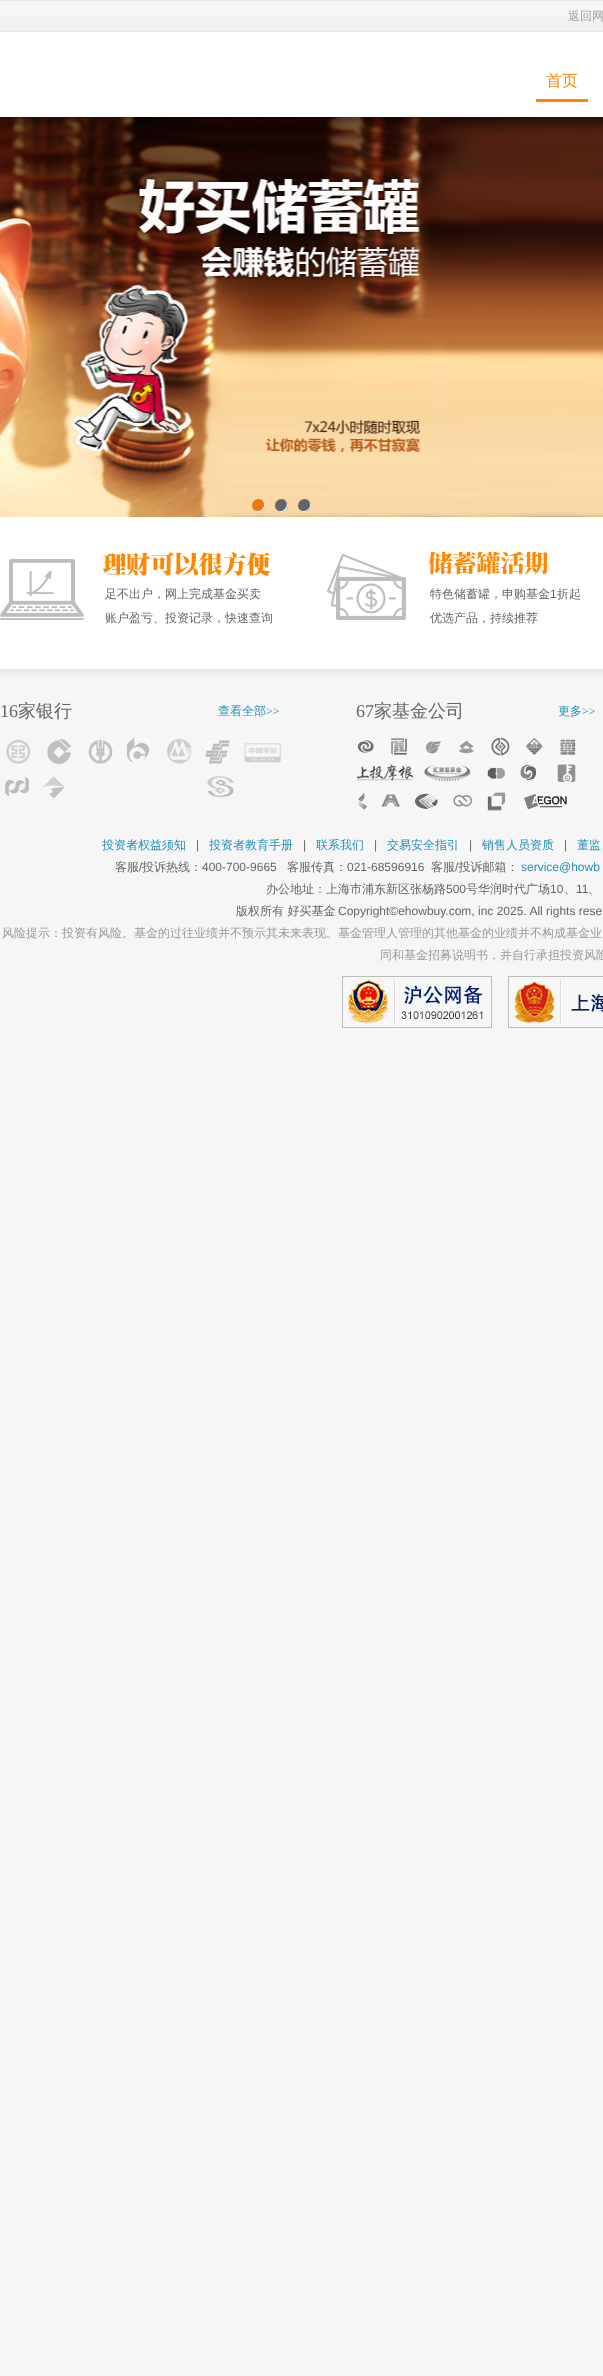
<svg xmlns="http://www.w3.org/2000/svg" width="603" height="2376" viewBox="0 0 603 2376">
  <defs>
    <linearGradient id="g1" gradientUnits="userSpaceOnUse" x1="0" y1="1" x2="0" y2="31"><stop offset="0" stop-color="#f8f8f8"/><stop offset="1" stop-color="#efefef"/></linearGradient>
  </defs>
  <rect width="100%" height="100%" fill="#f6f6f6"/>
  <rect x="0" y="16" width="603" height="15" fill="url(#g1)"/>
  <rect x="0" y="0" width="603" height="1" fill="#e6e6e6"/>
  <rect x="0" y="31" width="603" height="1" fill="#e6e6e6"/>
  <text x="568" y="20" font-family="WenQuanYi Zen Hei" font-size="12" font-weight="500" fill="#a0a0a0">返回网</text>
  <rect x="0" y="32" width="603" height="85" fill="#ffffff"/>
  <rect x="536" y="99" width="52" height="3" fill="#ff8800"/>
  <text x="546" y="86" font-family="WenQuanYi Zen Hei" font-size="16" font-weight="500" fill="#ff8800">首页</text>
  <image x="0" y="117" width="603" height="400" href="img1.png"/>
  <circle cx="258.5" cy="505.5" r="6.5" fill="#ec7815"/>
  <path d="M253 509C258.5 517 269.5 507.5 263 501C267 508 258.5 514.5 253 509Z" fill="#f6f6f6"/>
  <circle cx="281.5" cy="505.5" r="6.5" fill="#656565"/>
  <path d="M277 510.5C284 516.5 292.5 505 285 500C290 505.5 283.5 513.5 277 510.5Z" fill="#f6f6f6"/>
  <circle cx="304.5" cy="505.5" r="6.5" fill="#656565"/>
  <path d="M299 509C304.5 517 315.5 507.5 309 501C313 508 304.5 514.5 299 509Z" fill="#f6f6f6"/>
  <rect x="0" y="517" width="603" height="152" fill="#ffffff"/>
  <image x="0" y="552" width="271" height="68" href="img2.png"/>
  <text x="105" y="598" font-family="WenQuanYi Zen Hei" font-size="12" font-weight="500" fill="#656565">足不出户，网上完成基金买卖</text>
  <text x="105" y="622" font-family="WenQuanYi Zen Hei" font-size="12" font-weight="500" fill="#656565">账户盈亏、投资记录，快速查询</text>
  <image x="327" y="552" width="221" height="68" href="img3.png"/>
  <text x="430" y="598" font-family="WenQuanYi Zen Hei" font-size="12" font-weight="500" fill="#656565">特色储蓄罐，申购基金</text>
  <text x="550" y="598" font-family="Liberation Sans" font-size="12" fill="#656565">1</text>
  <text x="557" y="598" font-family="WenQuanYi Zen Hei" font-size="12" font-weight="500" fill="#656565">折起</text>
  <text x="430" y="622" font-family="WenQuanYi Zen Hei" font-size="12" font-weight="500" fill="#656565">优选产品，持续推荐</text>
  <image x="0" y="669" width="603" height="7" href="img4.png"/>
  <text x="0" y="717" font-family="Liberation Serif" font-size="18" fill="#656565">16</text>
  <text x="18" y="717" font-family="WenQuanYi Zen Hei" font-size="18" font-weight="500" fill="#656565">家银行</text>
  <text x="218" y="715" font-family="WenQuanYi Zen Hei" font-size="12" font-weight="500" fill="#258fb8">查看全部</text>
  <text x="266" y="715" font-family="Liberation Serif" font-size="12" fill="#258fb8">&gt;&gt;</text>
  <image x="6" y="739" width="25" height="25" href="img5.png"/>
  <image x="47" y="739" width="24" height="26" href="img6.png"/>
  <image x="88" y="739" width="25" height="25" href="img7.png"/>
  <image x="127" y="738" width="23" height="25" href="img8.png"/>
  <image x="166" y="738" width="26" height="26" href="img9.png"/>
  <image x="205" y="740" width="25" height="24" href="img10.png"/>
  <image x="244" y="743" width="38" height="20" href="img11.png"/>
  <image x="5" y="776" width="24" height="21" href="img12.png"/>
  <image x="43" y="776" width="22" height="23" href="img13.png"/>
  <image x="207" y="776" width="27" height="22" href="img14.png"/>
  <text x="356" y="717" font-family="Liberation Serif" font-size="18" fill="#656565">67</text>
  <text x="374" y="717" font-family="WenQuanYi Zen Hei" font-size="18" font-weight="500" fill="#656565">家基金公司</text>
  <text x="558" y="715" font-family="WenQuanYi Zen Hei" font-size="12" font-weight="500" fill="#258fb8">更多</text>
  <text x="582" y="715" font-family="Liberation Serif" font-size="12" fill="#258fb8">&gt;&gt;</text>
  <image x="356" y="737" width="220" height="74" href="img15.png"/>
  <text x="102" y="849" font-family="WenQuanYi Zen Hei" font-size="12" font-weight="500" fill="#258fb8">投资者权益须知</text>
  <text x="196" y="849" font-family="Liberation Sans" font-size="12" fill="#656565">|</text>
  <text x="209" y="849" font-family="WenQuanYi Zen Hei" font-size="12" font-weight="500" fill="#258fb8">投资者教育手册</text>
  <text x="303" y="849" font-family="Liberation Sans" font-size="12" fill="#656565">|</text>
  <text x="316" y="849" font-family="WenQuanYi Zen Hei" font-size="12" font-weight="500" fill="#258fb8">联系我们</text>
  <text x="374" y="849" font-family="Liberation Sans" font-size="12" fill="#656565">|</text>
  <text x="387" y="849" font-family="WenQuanYi Zen Hei" font-size="12" font-weight="500" fill="#258fb8">交易安全指引</text>
  <text x="469" y="849" font-family="Liberation Sans" font-size="12" fill="#656565">|</text>
  <text x="482" y="849" font-family="WenQuanYi Zen Hei" font-size="12" font-weight="500" fill="#258fb8">销售人员资质</text>
  <text x="564" y="849" font-family="Liberation Sans" font-size="12" fill="#656565">|</text>
  <text x="577" y="849" font-family="WenQuanYi Zen Hei" font-size="12" font-weight="500" fill="#258fb8">董监</text>
  <text x="115" y="871" font-family="WenQuanYi Zen Hei" font-size="12" font-weight="500" fill="#656565">客服</text>
  <text x="139" y="871" font-family="Liberation Sans" font-size="12" fill="#656565">/</text>
  <text x="142" y="871" font-family="WenQuanYi Zen Hei" font-size="12" font-weight="500" fill="#656565">投诉热线：</text>
  <text x="202" y="871" font-family="Liberation Sans" font-size="12" fill="#656565">400-700-9665</text>
  <text x="287" y="871" font-family="WenQuanYi Zen Hei" font-size="12" font-weight="500" fill="#656565">客服传真：</text>
  <text x="347" y="871" font-family="Liberation Sans" font-size="12" fill="#656565">021-68596916</text>
  <text x="431" y="871" font-family="WenQuanYi Zen Hei" font-size="12" font-weight="500" fill="#656565">客服 投诉邮箱：</text>
  <text x="455" y="871" font-family="Liberation Sans" font-size="12" fill="#656565">/</text>
  <text x="521" y="871" font-family="Liberation Sans" font-size="12" fill="#258fb8">service@howb</text>
  <text x="266" y="893" font-family="WenQuanYi Zen Hei" font-size="12" font-weight="500" fill="#656565">办公地址：上海市浦东新区张杨路</text>
  <text x="446" y="893" font-family="Liberation Sans" font-size="12" fill="#656565">500</text>
  <text x="466" y="893" font-family="WenQuanYi Zen Hei" font-size="12" font-weight="500" fill="#656565">号华润时代广场</text>
  <text x="550" y="893" font-family="Liberation Sans" font-size="12" fill="#656565">10</text>
  <text x="576" y="893" font-family="Liberation Sans" font-size="12" fill="#656565">11</text>
  <text x="564" y="893" font-family="WenQuanYi Zen Hei" font-size="12" font-weight="500" fill="#656565">、</text>
  <text x="588" y="893" font-family="WenQuanYi Zen Hei" font-size="12" font-weight="500" fill="#656565">、</text>
  <text x="236" y="915" font-family="WenQuanYi Zen Hei" font-size="12" font-weight="500" fill="#656565">版权所有 好买基金</text>
  <text x="338" y="915" font-family="Liberation Sans" font-size="12" fill="#656565">Copyright©ehowbuy.com, inc 2025. All rights rese</text>
  <text x="2" y="937" font-family="WenQuanYi Zen Hei" font-size="12" font-weight="500" fill="#999999">风险提示：投资有风险。基金的过往业绩并不预示其未来表现。基金管理人管理的其他基金的业绩并不构成基金业</text>
  <text x="380" y="959" font-family="WenQuanYi Zen Hei" font-size="12" font-weight="500" fill="#999999">同和基金招募说明书，并自行承担投资风险</text>
  <image x="342" y="976" width="150" height="52" href="img16.png"/>
  <image x="508" y="976" width="95" height="52" href="img17.png"/>
</svg>
